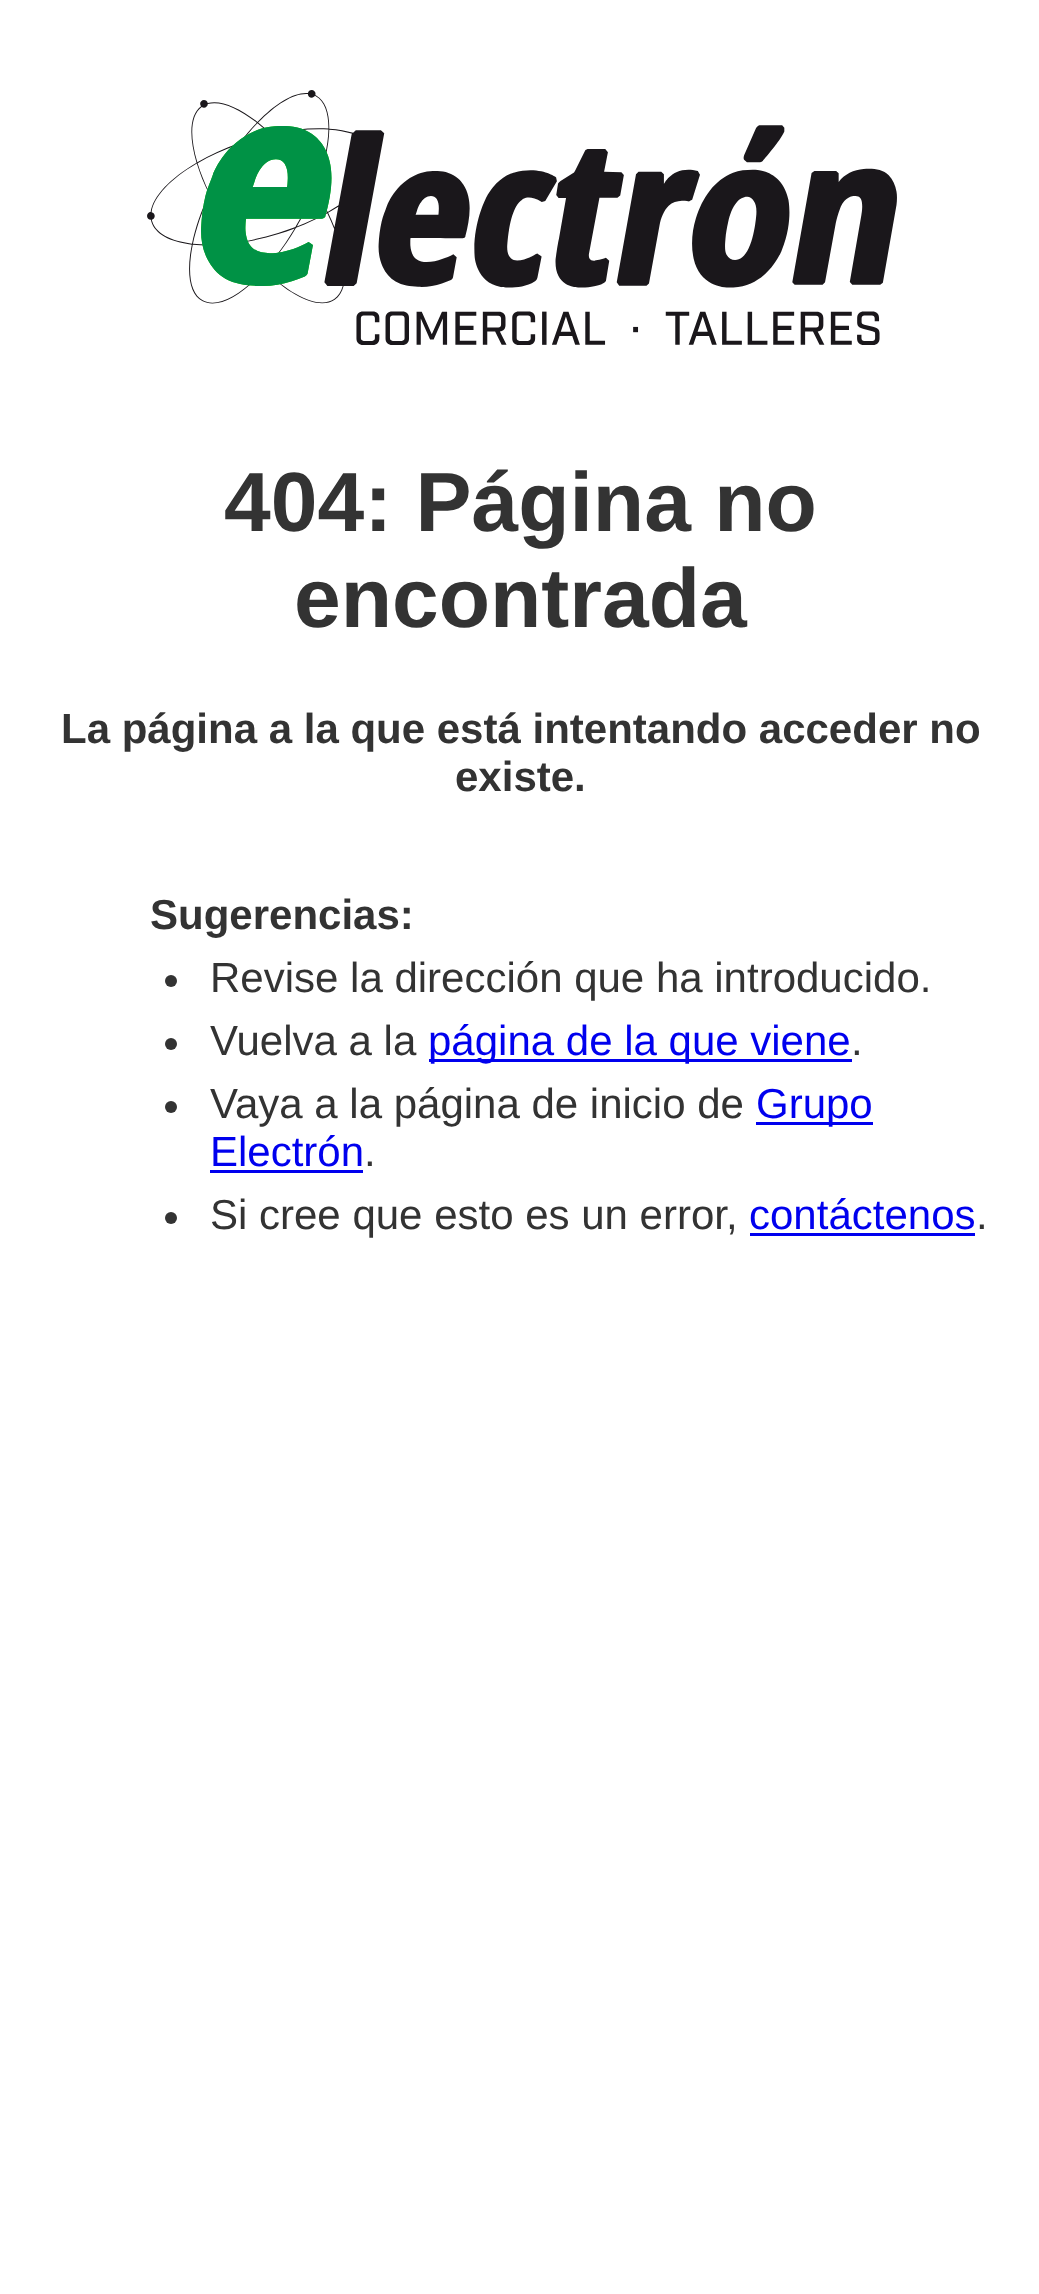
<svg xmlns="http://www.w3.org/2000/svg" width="1039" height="2294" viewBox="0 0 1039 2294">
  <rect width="100%" height="100%" fill="#ffffff"/>
  <image x="147" y="90" width="750" height="255" href="img1.png"/>
  <text x="224" y="531" font-family="Liberation Sans" font-size="84" font-weight="bold" fill="#333333">404: Página no</text>
  <text x="294" y="627" font-family="Liberation Sans" font-size="84" font-weight="bold" fill="#333333">encontrada</text>
  <text x="61" y="743" font-family="Liberation Sans" font-size="42" font-weight="bold" fill="#333333">La página a la que está intentando acceder no</text>
  <text x="455" y="791" font-family="Liberation Sans" font-size="42" font-weight="bold" fill="#333333">existe.</text>
  <text x="150" y="929" font-family="Liberation Sans" font-size="42" font-weight="bold" fill="#333333">Sugerencias:</text>
  <circle cx="171" cy="981" r="6" fill="#333333"/>
  <text x="210" y="992" font-family="Liberation Sans" font-size="42" fill="#333333">Revise la dirección que ha introducido.</text>
  <circle cx="171" cy="1044" r="6" fill="#333333"/>
  <text x="210" y="1055" font-family="Liberation Sans" font-size="42" fill="#333333">Vuelva a la</text>
  <rect x="429" y="1059" width="423" height="3" fill="#0000ee"/>
  <text x="428" y="1055" font-family="Liberation Sans" font-size="42" fill="#0000ee">página de la que viene</text>
  <text x="851" y="1055" font-family="Liberation Sans" font-size="42" fill="#333333">.</text>
  <circle cx="171" cy="1107" r="6" fill="#333333"/>
  <text x="210" y="1118" font-family="Liberation Sans" font-size="42" fill="#333333">Vaya a la página de inicio de</text>
  <rect x="756" y="1122" width="117" height="3" fill="#0000ee"/>
  <text x="756" y="1118" font-family="Liberation Sans" font-size="42" fill="#0000ee">Grupo</text>
  <text x="210" y="1166" font-family="Liberation Sans" font-size="42" fill="#0000ee">Electrón</text>
  <rect x="210" y="1170" width="153" height="3" fill="#0000ee"/>
  <text x="364" y="1166" font-family="Liberation Sans" font-size="42" fill="#333333">.</text>
  <circle cx="171" cy="1218" r="6" fill="#333333"/>
  <text x="210" y="1229" font-family="Liberation Sans" font-size="42" fill="#333333">Si cree que esto es un error,</text>
  <text x="749" y="1229" font-family="Liberation Sans" font-size="42" fill="#0000ee">contáctenos</text>
  <rect x="750" y="1233" width="225" height="3" fill="#0000ee"/>
  <text x="976" y="1229" font-family="Liberation Sans" font-size="42" fill="#333333">.</text>
</svg>
